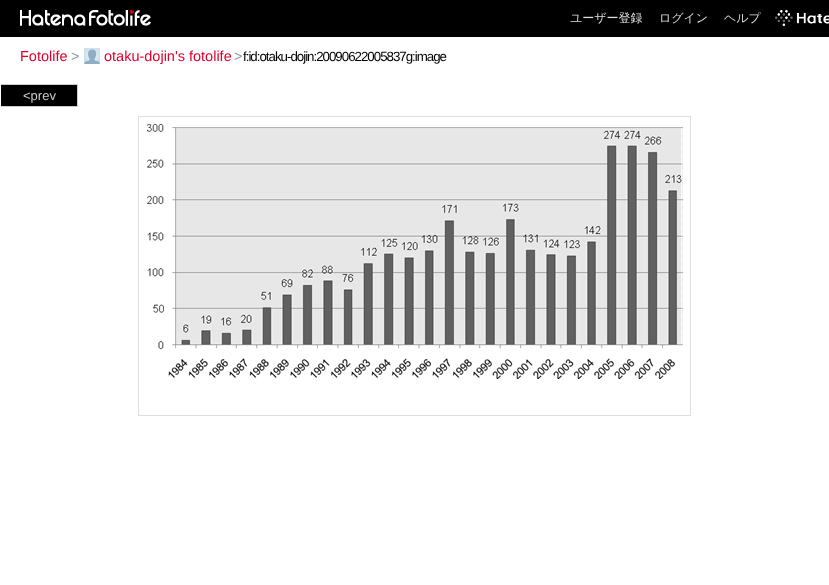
<svg xmlns="http://www.w3.org/2000/svg" width="829" height="585" viewBox="0 0 829 585">
  <rect width="100%" height="100%" fill="#ffffff"/>
  <rect x="0" y="0" width="829" height="37" fill="#000000"/>
  <image x="20" y="10" width="66" height="16" href="img1.png"/>
  <image x="89" y="10" width="62" height="16" href="img2.png"/>
  <text x="570" y="22" font-family="WenQuanYi Zen Hei" font-size="12" font-weight="500" fill="#dddddd">ユーザー登録</text>
  <text x="659" y="22" font-family="WenQuanYi Zen Hei" font-size="12" font-weight="500" fill="#dddddd">ログイン</text>
  <text x="724" y="22" font-family="WenQuanYi Zen Hei" font-size="12" font-weight="500" fill="#dddddd">ヘルプ</text>
  <image x="775" y="10" width="54" height="16" href="img3.png"/>
  <text x="20" y="61" font-family="Liberation Sans" font-size="14.5" fill="#de002f">Fotolife</text>
  <text x="71" y="61" font-family="Liberation Sans" font-size="14.5" fill="#999999">&gt;</text>
  <image x="84" y="48" width="16" height="16" href="img4.png"/>
  <text x="104" y="61" font-family="Liberation Sans" font-size="14.5" fill="#de002f">otaku-dojin's fotolife</text>
  <text x="234" y="61" font-family="Liberation Sans" font-size="14.5" fill="#999999">&gt;</text>
  <text x="243" y="61" font-family="Liberation Sans" font-size="13.3" letter-spacing="-1" fill="#000000">f:id:otaku-dojin:20090622005837g:image</text>
  <rect x="1" y="85" width="76" height="21" fill="#000000"/>
  <rect x="1" y="84" width="77" height="1" fill="#cccccc"/>
  <rect x="77" y="84" width="1" height="23" fill="#cccccc"/>
  <rect x="1" y="106" width="77" height="1" fill="#cccccc"/>
  <text x="23" y="100" font-family="Liberation Sans" font-size="13" fill="#cccccc">&lt;prev</text>
  <rect x="138.5" y="116.5" width="552" height="299" fill="none" stroke="#dedede"/>
  <image x="146" y="124" width="537" height="255" href="img5.png"/>
</svg>
